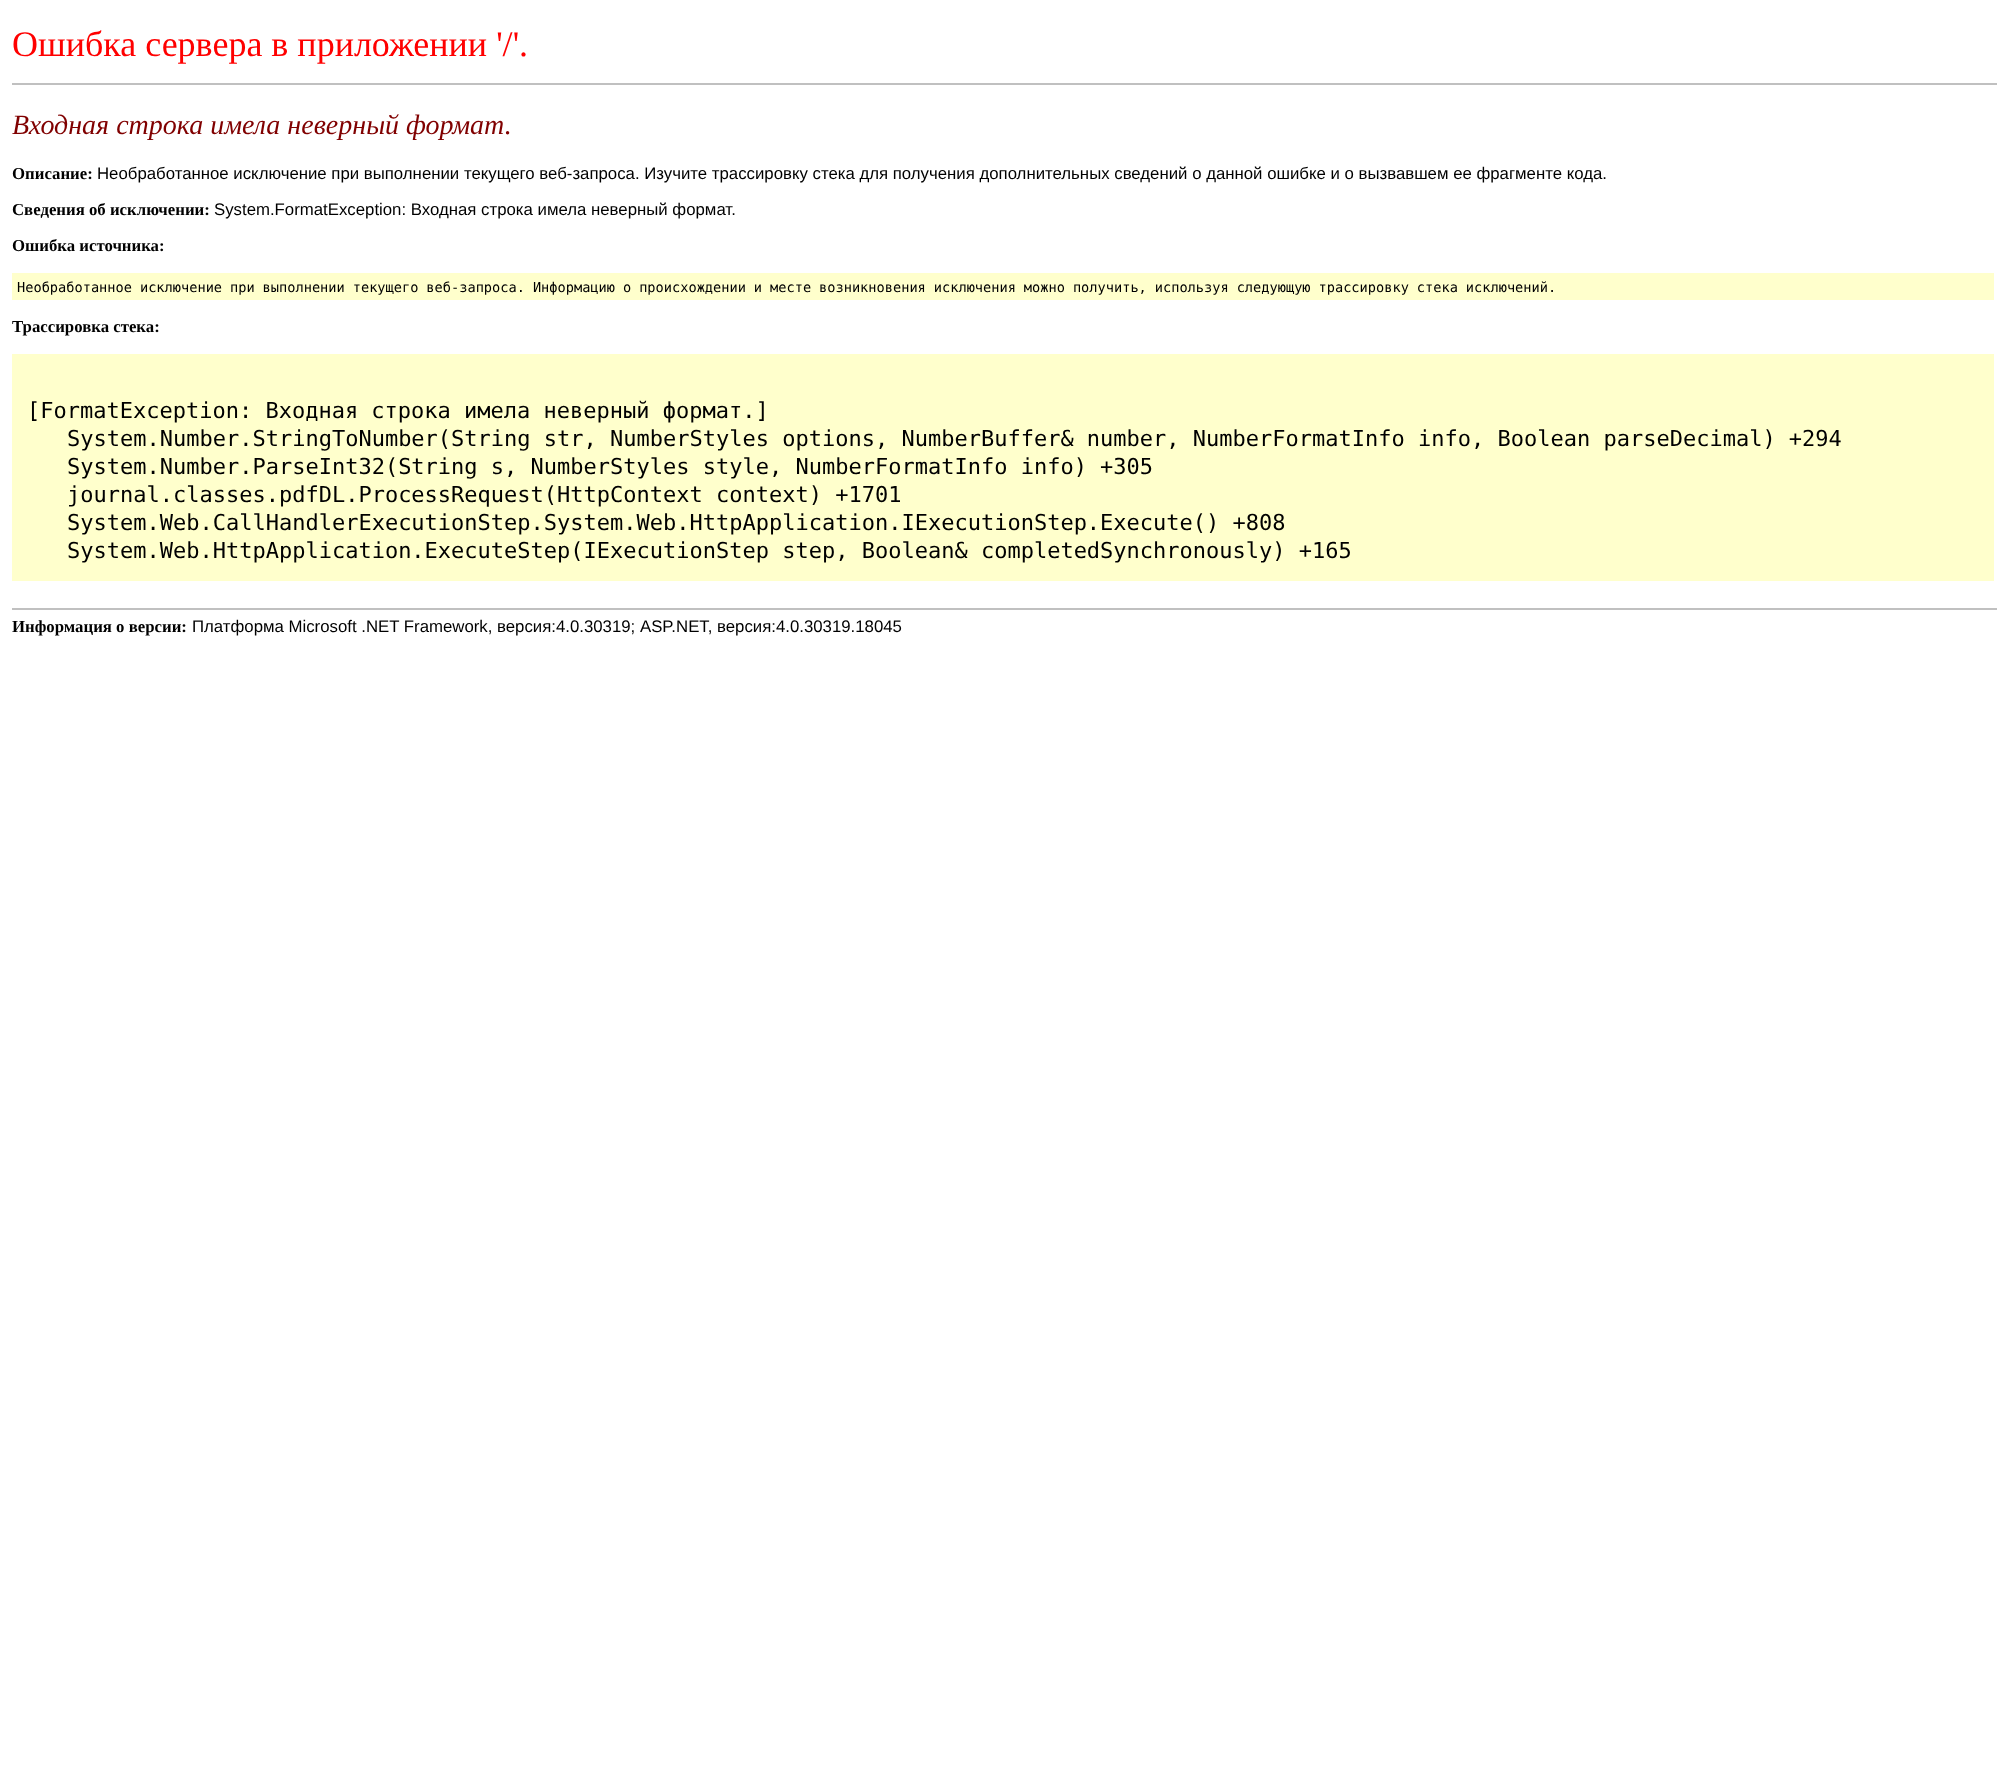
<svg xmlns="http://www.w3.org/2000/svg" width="2005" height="1776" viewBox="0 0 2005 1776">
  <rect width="100%" height="100%" fill="#ffffff"/>
  <text x="12" y="56" font-family="Liberation Serif" font-size="36" fill="#ff0000">Ошибка сервера в приложении '/'.</text>
  <rect x="12" y="83" width="1985" height="2" fill="#c0c0c0"/>
  <text x="12" y="134" font-family="Liberation Serif" font-size="28" font-style="italic" fill="#800000">Входная строка имела неверный формат.</text>
  <text x="12" y="179" font-family="Liberation Serif" font-size="16.8" font-weight="bold" fill="#000000">Описание:</text>
  <text x="97" y="179" font-family="Liberation Sans" font-size="16.8" fill="#000000">Необработанное исключение при выполнении текущего веб-запроса. Изучите трассировку стека для получения дополнительных сведений о данной ошибке и о вызвавшем ее фрагменте кода.</text>
  <text x="12" y="215" font-family="Liberation Serif" font-size="16.8" font-weight="bold" fill="#000000">Сведения об исключении:</text>
  <text x="214" y="215" font-family="Liberation Sans" font-size="16.8" fill="#000000">System.FormatException: Входная строка имела неверный формат.</text>
  <text x="12" y="251" font-family="Liberation Serif" font-size="16.8" font-weight="bold" fill="#000000">Ошибка источника:</text>
  <rect x="12" y="273" width="1982" height="27" fill="#ffffcc"/>
  <text x="17" y="292" word-spacing="-0.25" font-family="DejaVu Sans Mono" font-size="13.65" fill="#000000">Необработанное исключение при выполнении текущего веб-запроса. Информацию о происхождении и месте возникновения исключения можно получить, используя следующую трассировку стека исключений.</text>
  <text x="12" y="332" font-family="Liberation Serif" font-size="16.8" font-weight="bold" fill="#000000">Трассировка стека:</text>
  <rect x="12" y="354" width="1982" height="227" fill="#ffffcc"/>
  <text x="27" y="418" font-family="DejaVu Sans Mono" font-size="22" fill="#000000">[FormatException: Входная строка имела неверный формат.]</text>
  <text x="67" y="446" font-family="DejaVu Sans Mono" font-size="22" fill="#000000">System.Number.StringToNumber(String str, NumberStyles options, NumberBuffer&amp; number, NumberFormatInfo info, Boolean parseDecimal) +294</text>
  <text x="67" y="474" font-family="DejaVu Sans Mono" font-size="22" fill="#000000">System.Number.ParseInt32(String s, NumberStyles style, NumberFormatInfo info) +305</text>
  <text x="67" y="502" font-family="DejaVu Sans Mono" font-size="22" fill="#000000">journal.classes.pdfDL.ProcessRequest(HttpContext context) +1701</text>
  <text x="67" y="530" font-family="DejaVu Sans Mono" font-size="22" fill="#000000">System.Web.CallHandlerExecutionStep.System.Web.HttpApplication.IExecutionStep.Execute() +808</text>
  <text x="67" y="558" font-family="DejaVu Sans Mono" font-size="22" fill="#000000">System.Web.HttpApplication.ExecuteStep(IExecutionStep step, Boolean&amp; completedSynchronously) +165</text>
  <rect x="12" y="608" width="1985" height="2" fill="#c0c0c0"/>
  <text x="12" y="632" font-family="Liberation Serif" font-size="16.8" font-weight="bold" fill="#000000">Информация о версии:</text>
  <text x="192" y="632" font-family="Liberation Sans" font-size="16.8" fill="#000000">Платформа Microsoft .NET Framework, версия:4.0.30319; ASP.NET, версия:4.0.30319.18045</text>
</svg>
